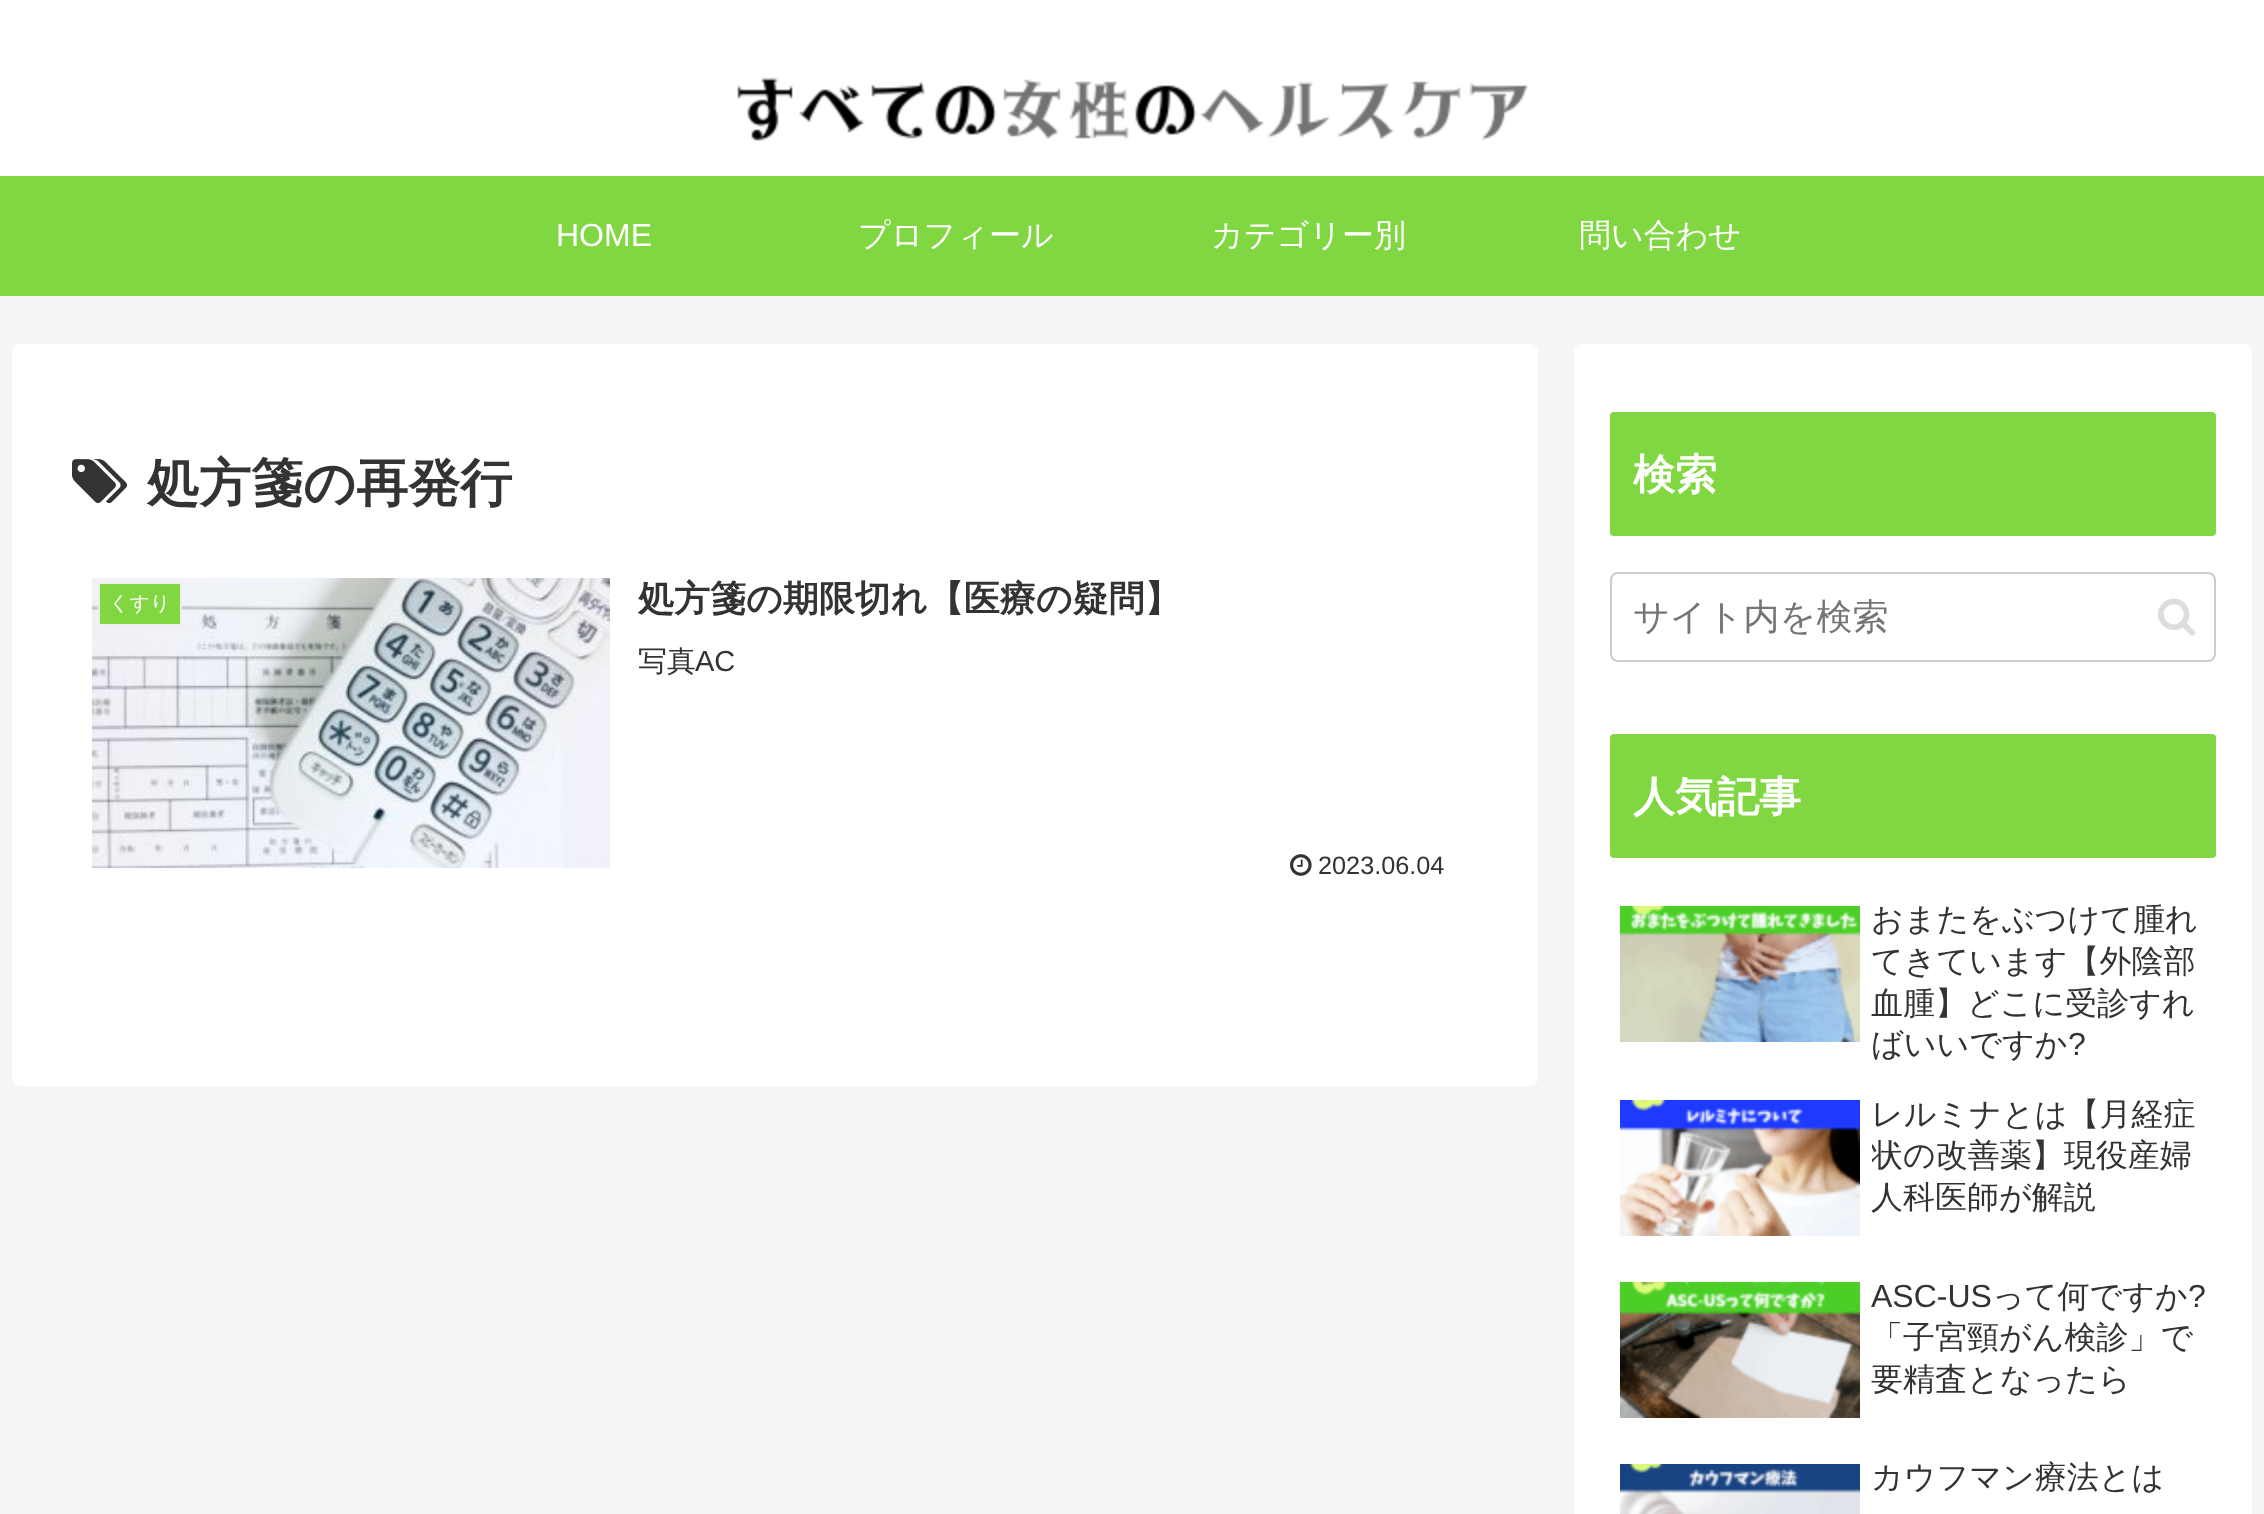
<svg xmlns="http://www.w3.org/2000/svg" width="2264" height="1514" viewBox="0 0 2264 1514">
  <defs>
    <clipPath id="clip1"><rect x="1872" y="1094" width="334" height="126"/></clipPath>
  </defs>
  <rect width="100%" height="100%" fill="#f4f5f7"/>
  <rect x="0" y="176" width="2264" height="120" fill="#81d742"/>
  <rect x="0" y="0" width="2264" height="176" fill="#ffffff"/>
  <image x="737" y="77" width="792" height="64" href="img1.png"/>
  <text x="556" y="246" font-family="Liberation Sans" font-size="32" fill="#ffffff">HOME</text>
  <text x="858" y="246" font-family="WenQuanYi Zen Hei" font-size="32" font-weight="500" fill="#ffffff">プロフィール</text>
  <text x="1211" y="246" font-family="WenQuanYi Zen Hei" font-size="32" font-weight="500" fill="#ffffff">カテゴリー別</text>
  <text x="1579" y="246" font-family="WenQuanYi Zen Hei" font-size="32" font-weight="500" fill="#ffffff">問い合わせ</text>
  <rect x="12" y="344" width="1526" height="742" rx="8" fill="#ffffff"/>
  <image x="72" y="459" width="56" height="45" href="img2.png"/>
  <text x="147" y="501" font-family="WenQuanYi Zen Hei" font-size="52" font-weight="bold" fill="#333333">処方箋の再発行</text>
  <image x="92" y="578" width="518" height="290" href="img3.png"/>
  <rect x="99" y="583" width="82" height="42" fill="#81d742" stroke="#eeeeee" stroke-width="2"/>
  <text x="109" y="610" font-family="WenQuanYi Zen Hei" font-size="20" font-weight="500" fill="#ffffff">くすり</text>
  <text x="638" y="611" font-family="WenQuanYi Zen Hei" font-size="36" font-weight="bold" fill="#333333">処方箋の期限切れ【医療の疑問】</text>
  <text x="638" y="671" font-family="WenQuanYi Zen Hei" font-size="29" font-weight="500" fill="#333333">写真</text>
  <text x="695" y="671" font-family="Liberation Sans" font-size="29" fill="#333333">AC</text>
  <image x="1290" y="854" width="22" height="22" href="img4.png"/>
  <text x="1318" y="874" font-family="Liberation Sans" font-size="25.25" fill="#333333">2023.06.04</text>
  <rect x="1574" y="344" width="678" height="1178" rx="8" fill="#ffffff"/>
  <rect x="1610" y="412" width="606" height="124" rx="4" fill="#81d742"/>
  <text x="1633" y="489" font-family="WenQuanYi Zen Hei" font-size="42" font-weight="bold" fill="#ffffff">検索</text>
  <rect x="1611" y="573" width="604" height="88" rx="7" fill="none" stroke="#cccccc" stroke-width="2"/>
  <text x="1633" y="629" font-family="WenQuanYi Zen Hei" font-size="36" font-weight="500" fill="#757575">サイト内を検索</text>
  <image x="2158" y="598" width="37" height="38" href="img5.png"/>
  <rect x="1610" y="734" width="606" height="124" rx="4" fill="#81d742"/>
  <text x="1633" y="811" font-family="WenQuanYi Zen Hei" font-size="42" font-weight="bold" fill="#ffffff">人気記事</text>
  <image x="1620" y="906" width="240" height="136" href="img6.png"/>
  <text x="1871" y="930" font-family="WenQuanYi Zen Hei" font-size="32" font-weight="500" fill="#333333">おまたをぶつけて腫れ</text>
  <text x="1871" y="972" font-family="WenQuanYi Zen Hei" font-size="32" font-weight="500" fill="#333333">てきています【外陰部</text>
  <text x="1871" y="1014" font-family="WenQuanYi Zen Hei" font-size="32" font-weight="500" fill="#333333">血腫】どこに受診すれ</text>
  <text x="1871" y="1055" font-family="WenQuanYi Zen Hei" font-size="32" font-weight="500" fill="#333333">ばいいですか</text>
  <text x="2068" y="1055" font-family="Liberation Sans" font-size="32" fill="#333333">?</text>
  <image x="1620" y="1100" width="240" height="136" href="img7.png"/>
  <text x="1871" y="1125" font-family="WenQuanYi Zen Hei" font-size="32" font-weight="500" fill="#333333">レルミナとは【月経症</text>
  <g clip-path="url(#clip1)">
    <text x="1871" y="1166" font-family="WenQuanYi Zen Hei" font-size="32" font-weight="500" fill="#333333">状の改善薬】現役産婦</text>
  </g>
  <text x="1871" y="1208" font-family="WenQuanYi Zen Hei" font-size="32" font-weight="500" fill="#333333">人科医師が解説</text>
  <image x="1620" y="1282" width="240" height="136" href="img8.png"/>
  <text x="1871" y="1307" font-family="Liberation Sans" font-size="32" fill="#333333">ASC-US</text>
  <text x="1992" y="1307" font-family="WenQuanYi Zen Hei" font-size="32" font-weight="500" fill="#333333">って何ですか</text>
  <text x="2188" y="1307" font-family="Liberation Sans" font-size="32" fill="#333333">?</text>
  <text x="1871" y="1348" font-family="WenQuanYi Zen Hei" font-size="32" font-weight="500" fill="#333333">「子宮頸がん検診」で</text>
  <text x="1871" y="1390" font-family="WenQuanYi Zen Hei" font-size="32" font-weight="500" fill="#333333">要精査となったら</text>
  <image x="1620" y="1464" width="240" height="50" href="img9.png"/>
  <text x="1871" y="1488" font-family="WenQuanYi Zen Hei" font-size="32" font-weight="500" fill="#333333">カウフマン療法とは</text>
</svg>
